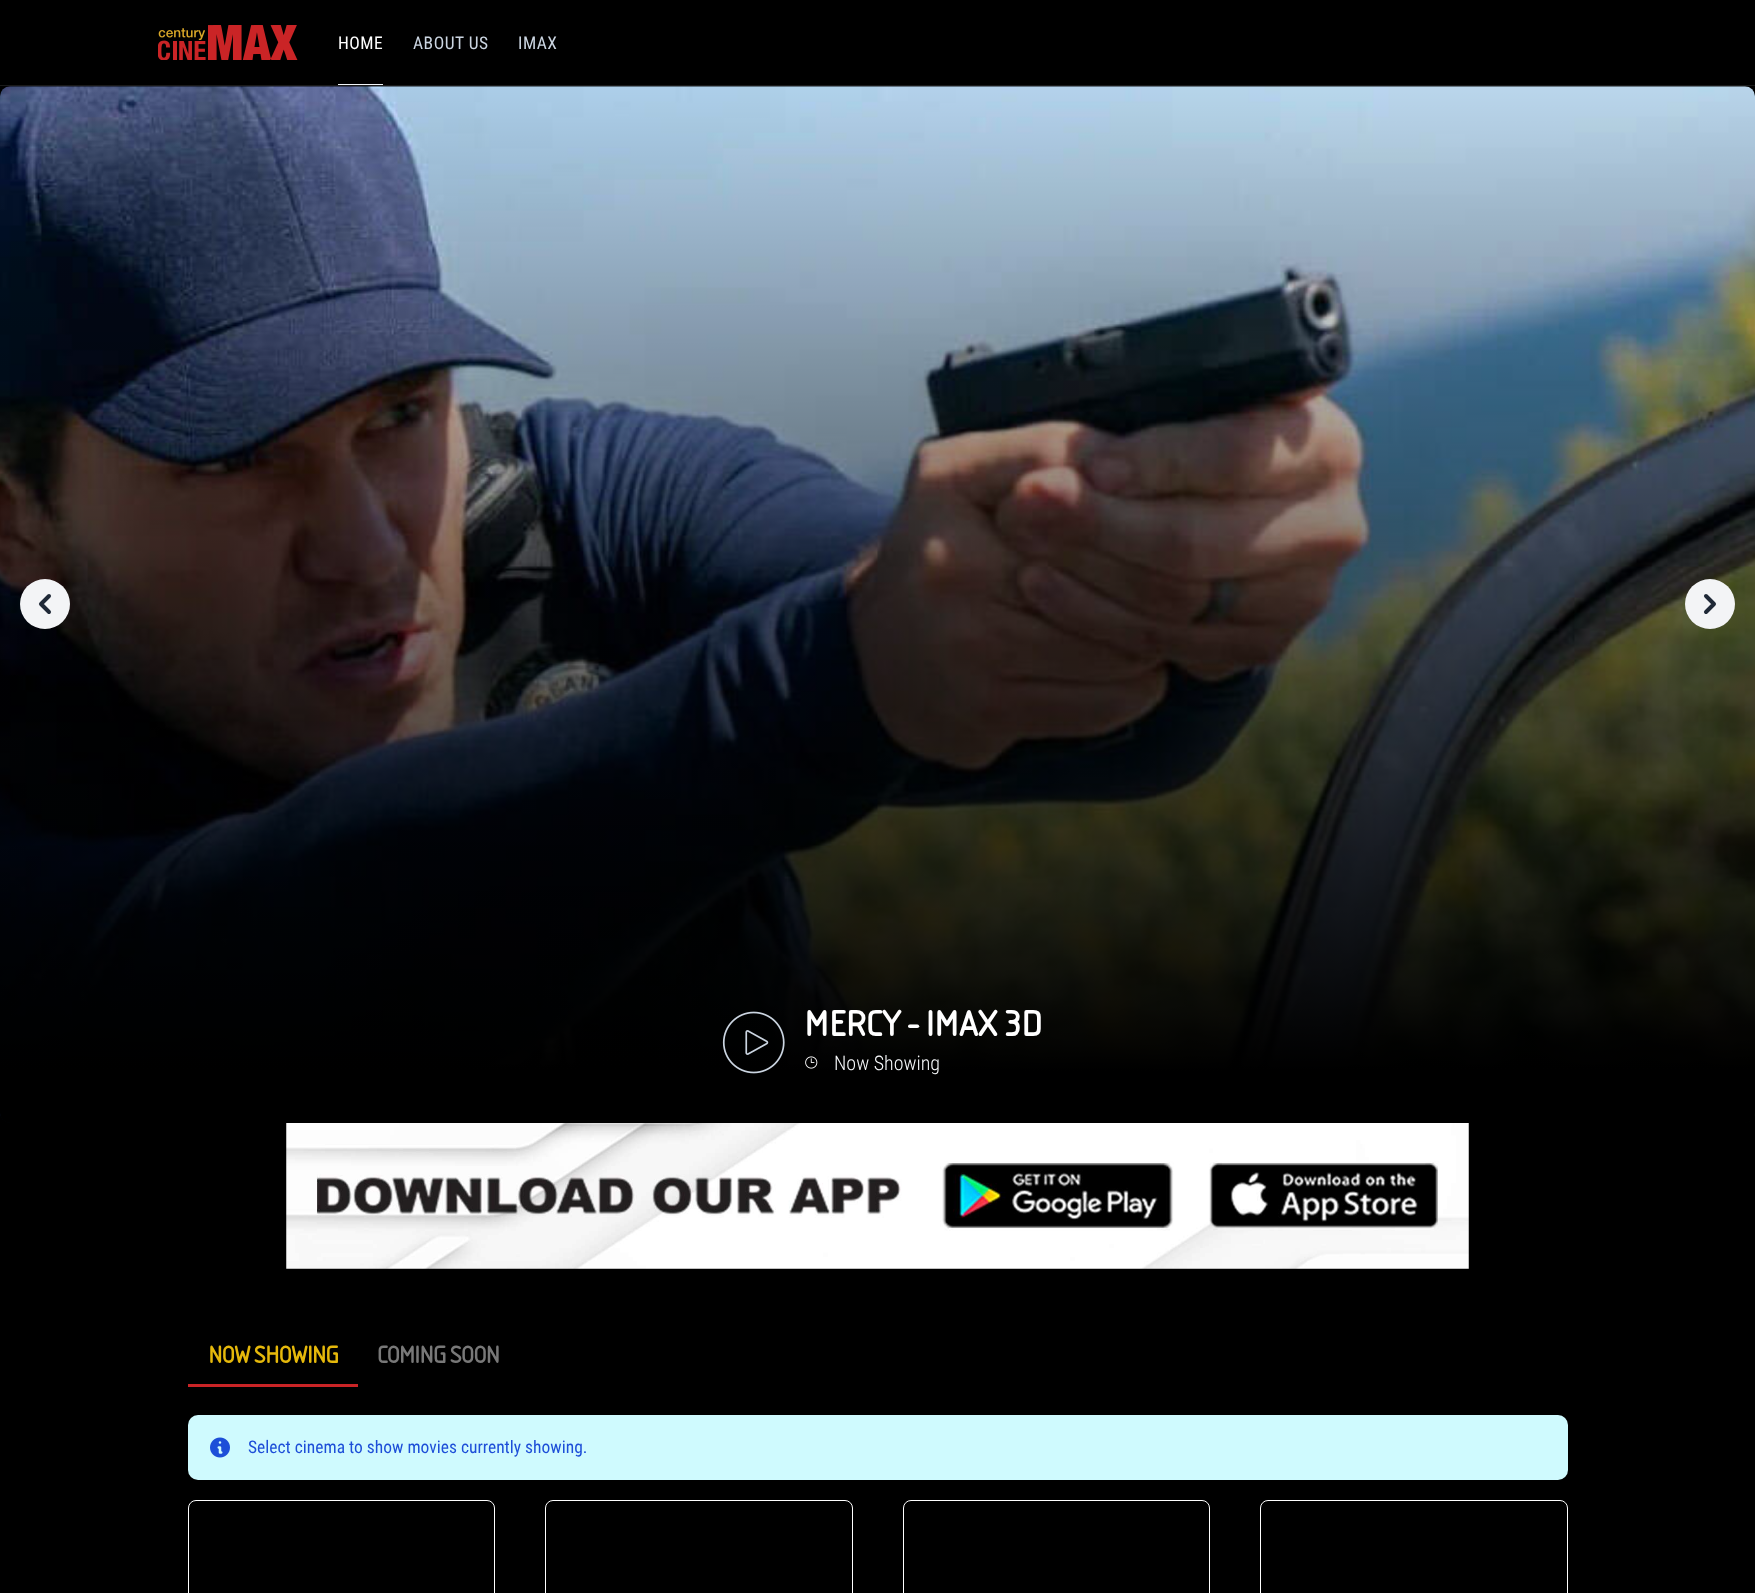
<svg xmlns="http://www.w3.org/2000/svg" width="1755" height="1593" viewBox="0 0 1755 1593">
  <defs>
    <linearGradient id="g1" gradientUnits="userSpaceOnUse" x1="878" y1="86" x2="878" y2="1123"><stop offset="0" stop-color="#000000" stop-opacity="0"/><stop offset="0.95" stop-color="#000000"/></linearGradient>
  </defs>
  <rect width="100%" height="100%" fill="#000000"/>
  <rect x="0" y="85" width="1755" height="1" fill="#1a1a1a"/>
  <image x="158" y="25" width="140" height="35" href="img1.png"/>
  <text x="338" y="49" font-family="Roboto Condensed" font-size="17.5" letter-spacing="0.5" fill="#ffffff">HOME</text>
  <rect x="338" y="84" width="45" height="1" fill="#f1f5f9"/>
  <text x="413" y="49" font-family="Roboto Condensed" font-size="17.5" letter-spacing="0.5" fill="#cbd5e1">ABOUT US</text>
  <text x="518" y="49" font-family="Roboto Condensed" font-size="17.5" letter-spacing="0.5" fill="#cbd5e1">IMAX</text>
  <image x="0" y="86" width="1755" height="1037" href="img2.png"/>
  <rect x="0" y="86" width="1755" height="1037" rx="10" fill="url(#g1)"/>
  <circle cx="45" cy="604" r="25" fill="#f3f4f6"/>
  <path d="M49 596L41 604L49 612" fill="none" stroke="#1f2937" stroke-width="4" stroke-linecap="round" stroke-linejoin="round"/>
  <circle cx="1710" cy="604" r="25" fill="#f3f4f6"/>
  <path d="M1706 612L1714 604L1706 596" fill="none" stroke="#1f2937" stroke-width="4" stroke-linecap="round" stroke-linejoin="round"/>
  <image x="722" y="1011" width="63" height="63" href="img3.png"/>
  <text x="804" y="1036" font-family="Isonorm" font-size="37.5" font-weight="bold" fill="#ffffff">MERCY - IMAX 3D</text>
  <image x="805" y="1056" width="13" height="13" href="img4.png"/>
  <text x="834" y="1070" font-family="Roboto Condensed" font-size="20" font-weight="300" fill="#f8fafc">Now Showing</text>
  <image x="286" y="1123" width="1183" height="146" href="img5.png"/>
  <rect x="188" y="1384" width="170" height="3" fill="#ca2426"/>
  <text x="208" y="1363" font-family="Isonorm" font-size="25" font-weight="bold" letter-spacing="-0.6" fill="#e5b80b">NOW SHOWING</text>
  <text x="377" y="1363" font-family="Isonorm" font-size="25" font-weight="bold" letter-spacing="-0.6" fill="#787878">COMING SOON</text>
  <rect x="188" y="1415" width="1380" height="65" rx="10" fill="#cffafe"/>
  <image x="210" y="1437" width="20" height="21" href="img6.png"/>
  <text x="248" y="1453" font-family="Roboto Condensed" font-size="17.5" fill="#1d4ed8">Select cinema to show movies currently showing.</text>
  <rect x="188.5" y="1500.5" width="306" height="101" rx="7.5" fill="none" stroke="#ffffff"/>
  <rect x="545.5" y="1500.5" width="307" height="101" rx="7.5" fill="none" stroke="#ffffff"/>
  <rect x="903.5" y="1500.5" width="306" height="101" rx="7.5" fill="none" stroke="#ffffff"/>
  <rect x="1260.5" y="1500.5" width="307" height="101" rx="7.5" fill="none" stroke="#ffffff"/>
</svg>
